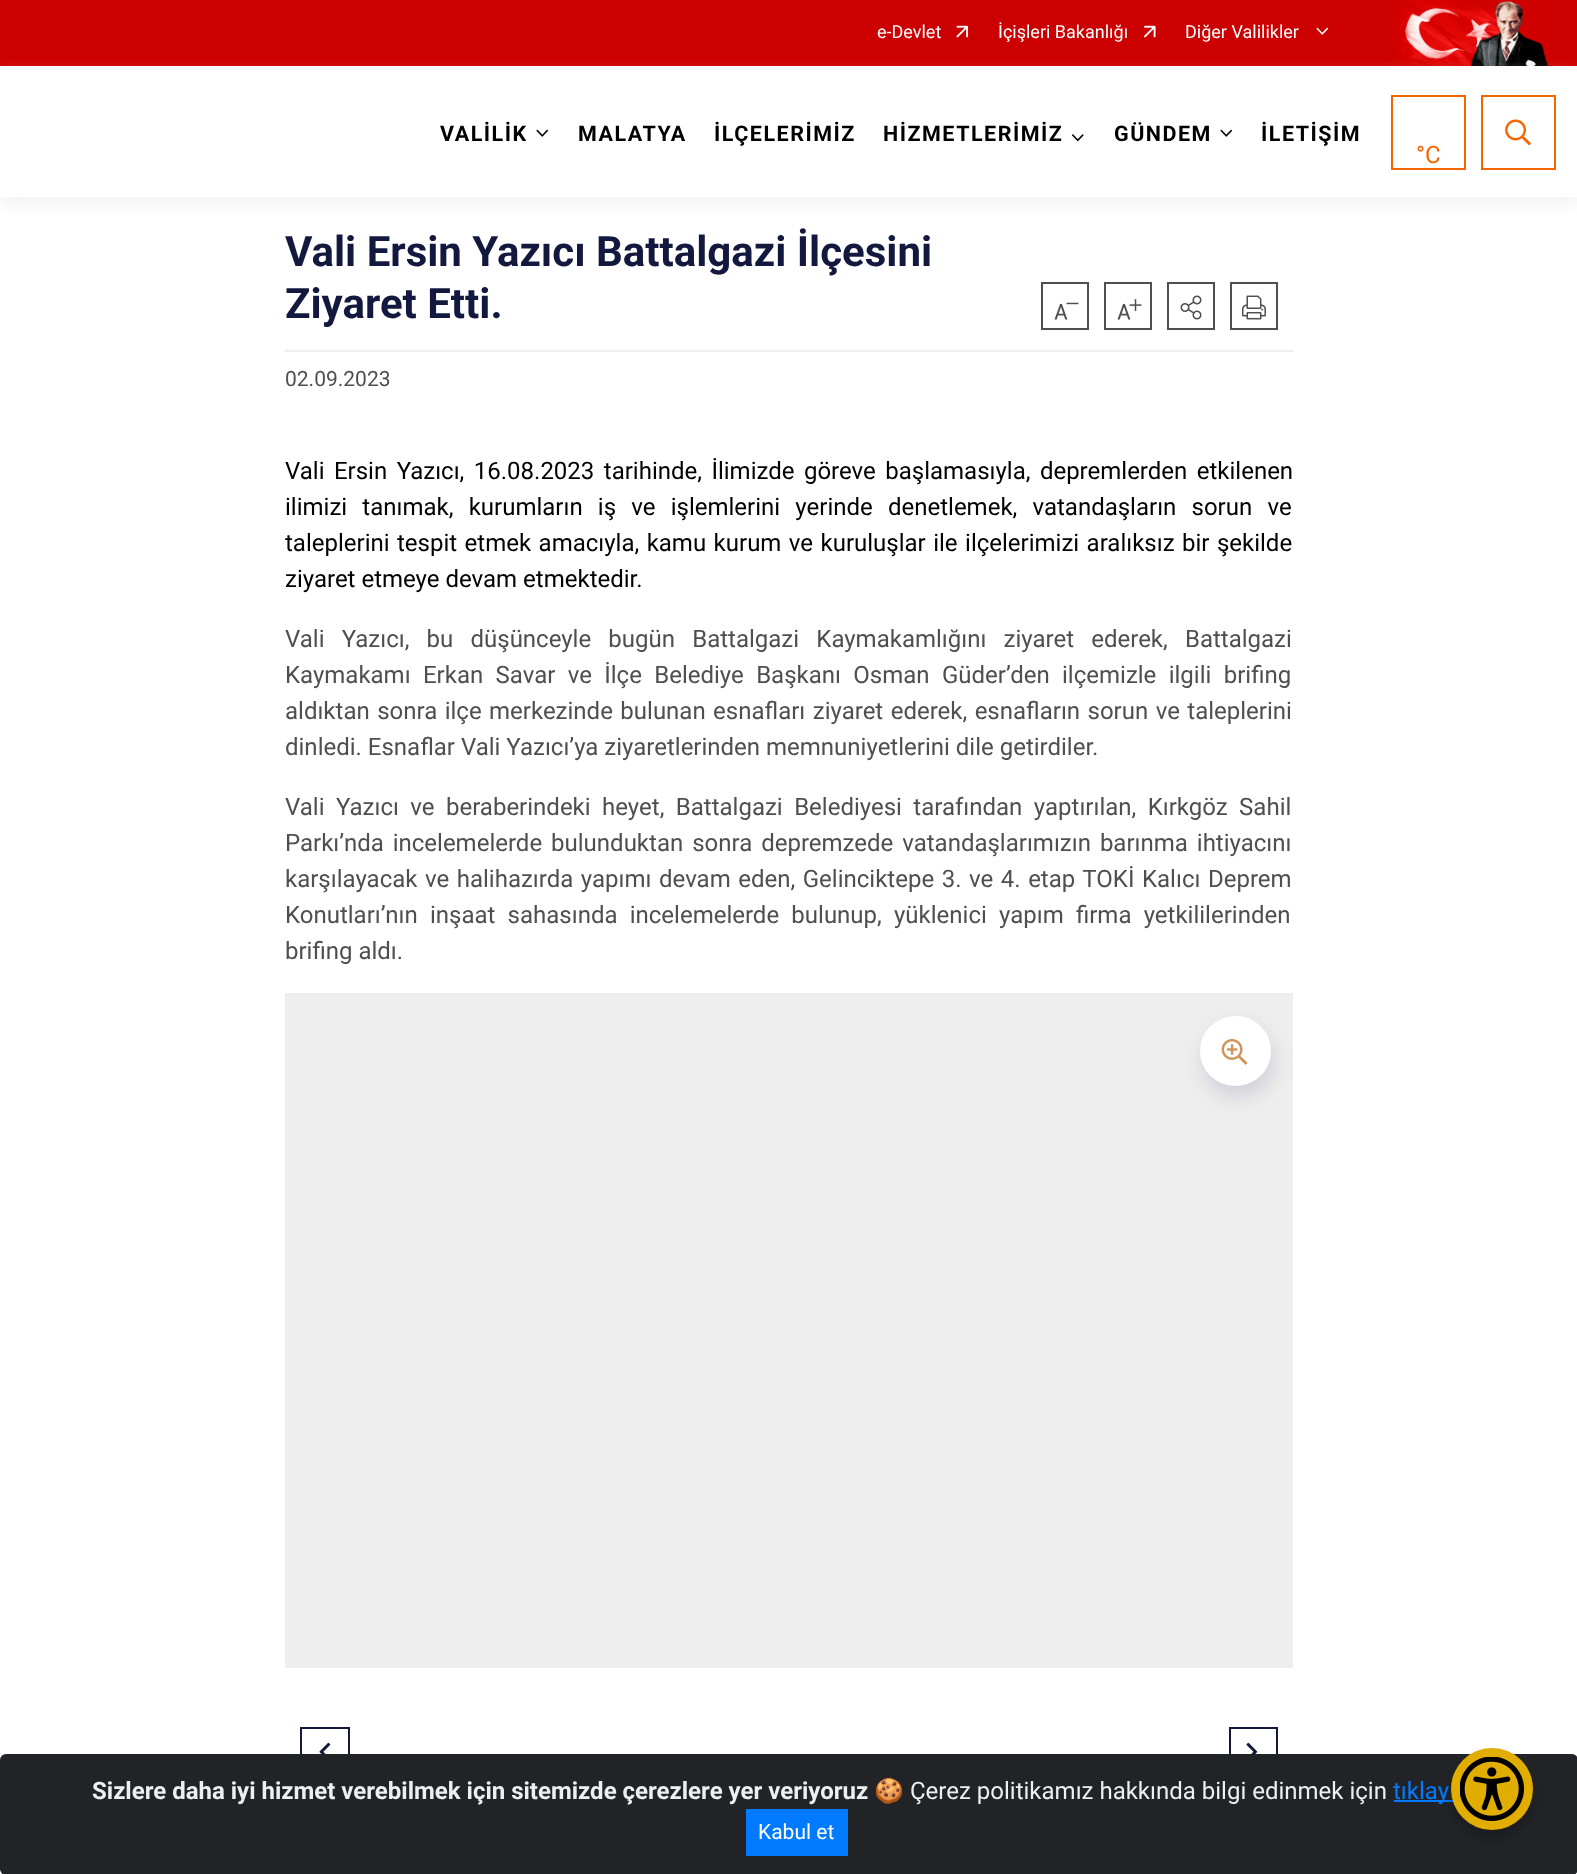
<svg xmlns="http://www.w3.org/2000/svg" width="1577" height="1874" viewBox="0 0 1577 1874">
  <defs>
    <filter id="blur1" x="-50%" y="-200%" width="200%" height="500%"><feGaussianBlur stdDeviation="7.5"/></filter>
    <filter id="blur2" x="-50%" y="-200%" width="200%" height="500%"><feGaussianBlur stdDeviation="10"/></filter>
    <filter id="blur3" x="-50%" y="-200%" width="200%" height="500%"><feGaussianBlur stdDeviation="6"/></filter>
  </defs>
  <rect width="100%" height="100%" fill="#ffffff"/>
  <rect x="0" y="0" width="1577" height="66" fill="#cc0000"/>
  <text x="877" y="38" font-family="Roboto" font-size="18" fill="#ffffff">e-Devlet</text>
  <image x="956" y="25" width="13" height="13" href="img1.png"/>
  <text x="998" y="38" font-family="Roboto" font-size="18" fill="#ffffff">İçişleri Bakanlığı</text>
  <image x="1144" y="25" width="12" height="13" href="img2.png"/>
  <text x="1185" y="38" font-family="Roboto" font-size="18" fill="#ffffff">Diğer Valilikler</text>
  <image x="1316" y="27" width="12" height="8" href="img3.png"/>
  <image x="1391" y="0" width="158" height="66" href="img4.png"/>
  <rect x="0" y="75" width="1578" height="131" fill="#eeeeee" fill-opacity="0.62" filter="url(#blur1)"/>
  <rect x="0" y="70" width="1577" height="127" fill="#ffffff"/>
  <text x="440" y="141" font-family="Roboto" font-size="21.5" font-weight="bold" letter-spacing="1.5" fill="#000000">VALİLİK</text>
  <image x="536" y="129" width="12" height="8" href="img5.png"/>
  <text x="578" y="141" font-family="Roboto" font-size="21.5" font-weight="bold" letter-spacing="1.5" fill="#000000">MALATYA</text>
  <text x="714" y="141" font-family="Roboto" font-size="21.5" font-weight="bold" letter-spacing="1.5" fill="#000000">İLÇELERİMİZ</text>
  <text x="883" y="141" font-family="Roboto" font-size="21.5" font-weight="bold" letter-spacing="1.5" fill="#000000">HİZMETLERİMİZ</text>
  <image x="1072" y="134" width="12" height="8" href="img6.png"/>
  <text x="1114" y="141" font-family="Roboto" font-size="21.5" font-weight="bold" letter-spacing="1.5" fill="#000000">GÜNDEM</text>
  <image x="1220" y="129" width="12" height="8" href="img5.png"/>
  <text x="1261" y="141" font-family="Roboto" font-size="21.5" font-weight="bold" letter-spacing="1.5" fill="#000000">İLETİŞİM</text>
  <rect x="1392" y="96" width="73" height="73" fill="none" stroke="#f56600" stroke-width="2"/>
  <text x="1416" y="163" font-family="Roboto" font-size="24" fill="#f56600">°C</text>
  <rect x="1482" y="96" width="73" height="73" fill="none" stroke="#f56600" stroke-width="2"/>
  <image x="1505" y="119" width="26" height="27" href="img7.png"/>
  <rect x="285" y="350" width="1008" height="2" fill="#eeeeee"/>
  <text x="285" y="266" font-family="Roboto" font-size="42" font-weight="bold" fill="#13183e">Vali Ersin Yazıcı Battalgazi İlçesini</text>
  <text x="285" y="318" font-family="Roboto" font-size="42" font-weight="bold" fill="#13183e">Ziyaret Etti.</text>
  <rect x="1042" y="283" width="46" height="46" fill="none" stroke="#4f4f4f" stroke-width="2"/>
  <image x="1054" y="302" width="25" height="18" href="img8.png"/>
  <rect x="1105" y="283" width="46" height="46" fill="none" stroke="#4f4f4f" stroke-width="2"/>
  <image x="1117" y="299" width="25" height="21" href="img9.png"/>
  <rect x="1168" y="283" width="46" height="46" fill="none" stroke="#4f4f4f" stroke-width="2"/>
  <image x="1180" y="295" width="22" height="25" href="img10.png"/>
  <rect x="1231" y="283" width="46" height="46" fill="none" stroke="#4f4f4f" stroke-width="2"/>
  <image x="1242" y="295" width="24" height="25" href="img11.png"/>
  <text x="285" y="386" font-family="Roboto" font-size="21" fill="#4f4f4f">02.09.2023</text>
  <text x="285" y="479" word-spacing="3.5" font-family="Roboto" font-size="24" fill="#000000">Vali Ersin Yazıcı, 16.08.2023 tarihinde, İlimizde göreve başlamasıyla, depremlerden etkilenen</text>
  <text x="285" y="515" word-spacing="9.25" font-family="Roboto" font-size="24" fill="#000000">ilimizi tanımak, kurumların iş ve işlemlerini yerinde denetlemek, vatandaşların sorun ve</text>
  <text x="285" y="551" word-spacing="1.5" font-family="Roboto" font-size="24" fill="#000000">taleplerini tespit etmek amacıyla, kamu kurum ve kuruluşlar ile ilçelerimizi aralıksız bir şekilde</text>
  <text x="285" y="587" font-family="Roboto" font-size="24" fill="#000000">ziyaret etmeye devam etmektedir.</text>
  <text x="285" y="647" word-spacing="11.25" font-family="Roboto" font-size="24" fill="#4f4f4f">Vali Yazıcı, bu düşünceyle bugün Battalgazi Kaymakamlığını ziyaret ederek, Battalgazi</text>
  <text x="285" y="683" word-spacing="6.4" font-family="Roboto" font-size="24" fill="#4f4f4f">Kaymakamı Erkan Savar ve İlçe Belediye Başkanı Osman Güder’den ilçemizle ilgili brifing</text>
  <text x="285" y="719" word-spacing="1.5" font-family="Roboto" font-size="24" fill="#4f4f4f">aldıktan sonra ilçe merkezinde bulunan esnafları ziyaret ederek, esnafların sorun ve taleplerini</text>
  <text x="285" y="755" font-family="Roboto" font-size="24" fill="#4f4f4f">dinledi. Esnaflar Vali Yazıcı’ya ziyaretlerinden memnuniyetlerini dile getirdiler.</text>
  <text x="285" y="815" word-spacing="5.5" font-family="Roboto" font-size="24" fill="#4f4f4f">Vali Yazıcı ve beraberindeki heyet, Battalgazi Belediyesi tarafından yaptırılan, Kırkgöz Sahil</text>
  <text x="285" y="851" word-spacing="3" font-family="Roboto" font-size="24" fill="#4f4f4f">Parkı’nda incelemelerde bulunduktan sonra depremzede vatandaşlarımızın barınma ihtiyacını</text>
  <text x="285" y="887" word-spacing="1.6" font-family="Roboto" font-size="24" fill="#4f4f4f">karşılayacak ve halihazırda yapımı devam eden, Gelinciktepe 3. ve 4. etap TOKİ Kalıcı Deprem</text>
  <text x="285" y="923" word-spacing="6.25" font-family="Roboto" font-size="24" fill="#4f4f4f">Konutları’nın inşaat sahasında incelemelerde bulunup, yüklenici yapım firma yetkililerinden</text>
  <text x="285" y="959" font-family="Roboto" font-size="24" fill="#4f4f4f">brifing aldı.</text>
  <rect x="285" y="993" width="1008" height="675" fill="#eeeeee"/>
  <rect x="1203" y="1026" width="71" height="71" rx="35.5" fill="#13183e" fill-opacity="0.13" filter="url(#blur2)"/>
  <rect x="1200" y="1016" width="71" height="70" rx="35" fill="#ffffff"/>
  <image x="1221" y="1039" width="27" height="26" href="img12.png"/>
  <rect x="301" y="1728" width="48" height="47" fill="none" stroke="#13183e" stroke-width="2"/>
  <image x="319" y="1742" width="12" height="12" href="img13.png"/>
  <rect x="1230" y="1728" width="47" height="47" fill="none" stroke="#13183e" stroke-width="2"/>
  <image x="1246" y="1742" width="12" height="12" href="img14.png"/>
  <rect x="0" y="1754" width="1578" height="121" rx="6" fill="#212327"/>
  <text x="92" y="1799" font-family="Roboto" font-size="24" font-weight="bold" fill="#ecf0f1">Sizlere daha iyi hizmet verebilmek için sitemizde çerezlere yer veriyoruz</text>
  <text x="874" y="1799" font-family="Noto Color Emoji" font-size="24" fill="#ecf0f1">🍪</text>
  <text x="910" y="1799" font-family="Roboto" font-size="24" fill="#ecf0f1">Çerez politikamız hakkında bilgi edinmek için</text>
  <rect x="1394" y="1800" width="60" height="2" fill="#007bff"/>
  <text x="1393" y="1799" font-family="Roboto" font-size="24" fill="#007bff">tıklay</text>
  <rect x="746" y="1809" width="102" height="47" fill="#007bff"/>
  <text x="758" y="1839" font-family="Roboto" font-size="21" fill="#ffffff">Kabul et</text>
  <rect x="1451" y="1757" width="82" height="82" rx="41" fill="#000000" fill-opacity="0.2" filter="url(#blur3)"/>
  <circle cx="1492" cy="1789" r="41" fill="#e1ad01"/>
  <image x="1460" y="1757" width="64" height="64" href="img15.png"/>
</svg>
